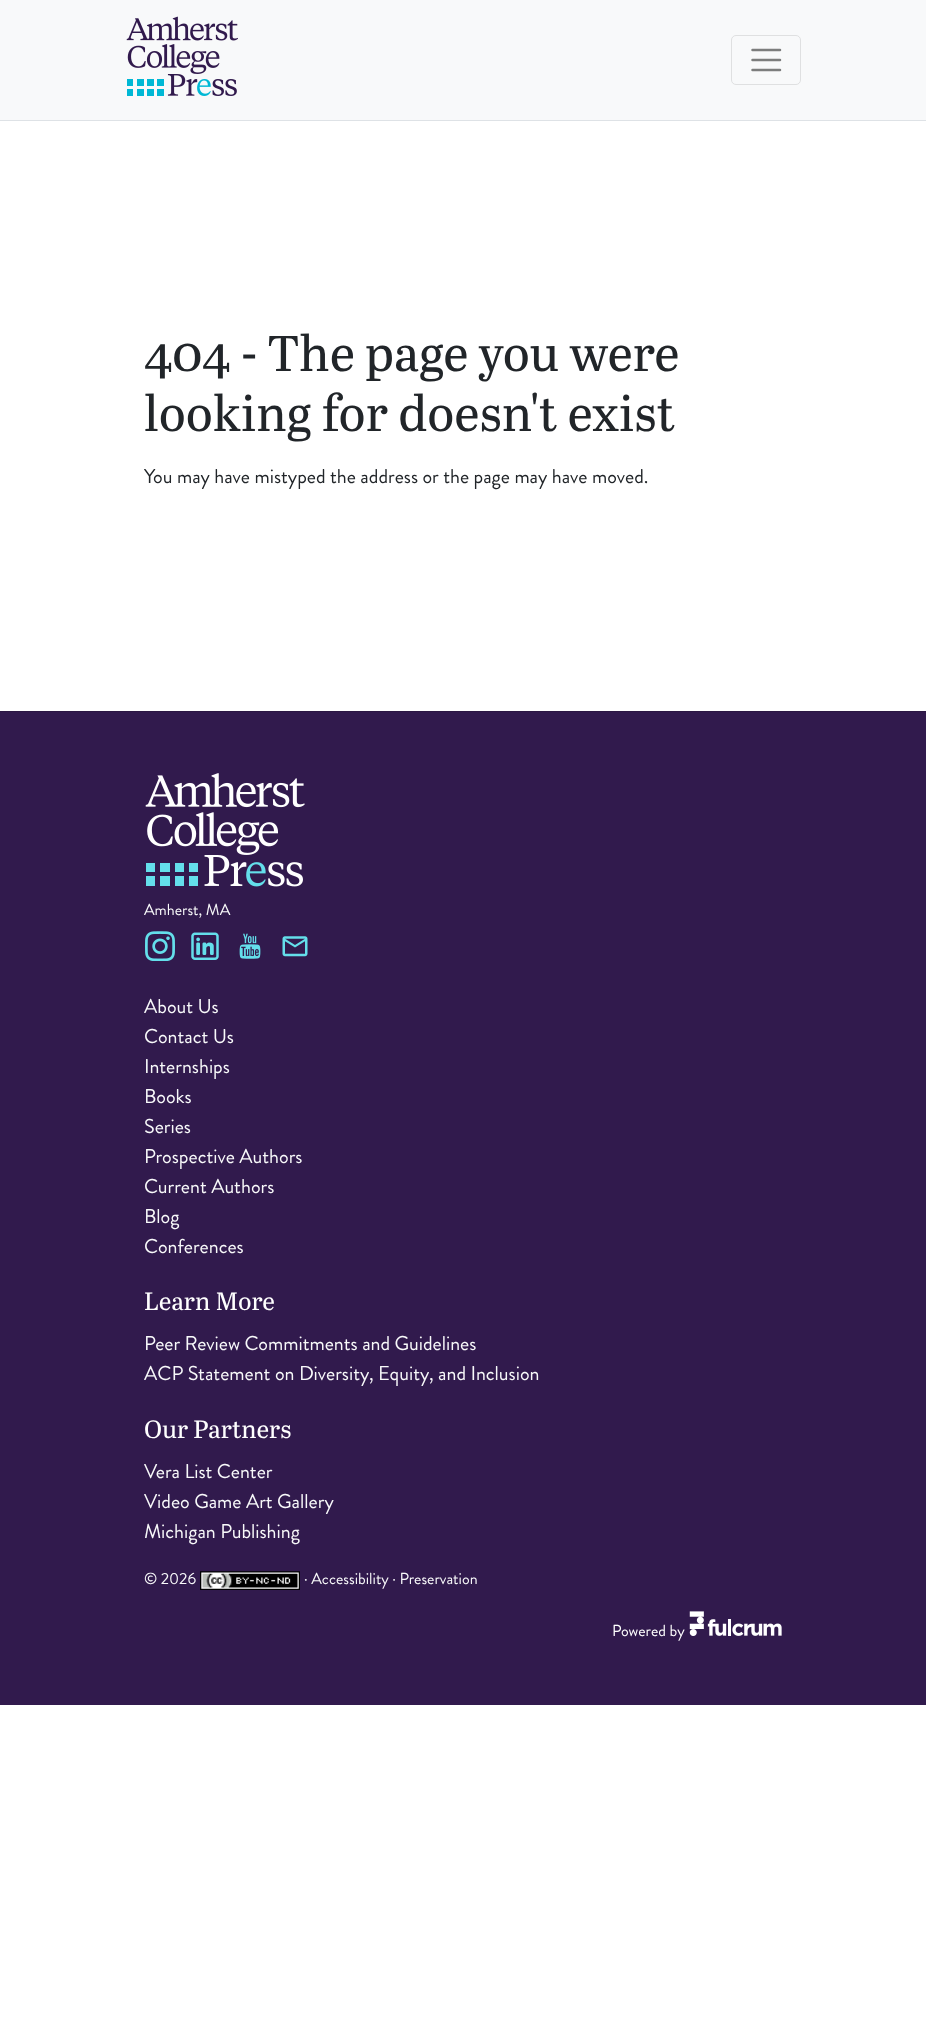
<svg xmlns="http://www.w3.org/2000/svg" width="926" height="2023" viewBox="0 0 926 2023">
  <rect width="100%" height="100%" fill="#ffffff"/>
  <rect x="0" y="0" width="926" height="120" fill="#f8f9fa"/>
  <rect x="0" y="120" width="926" height="1" fill="#dee2e6"/>
  <image x="126" y="16" width="112" height="80" href="img1.png"/>
  <rect x="731.5" y="35.5" width="69" height="49" rx="4.5" fill="none" stroke="#dfe0e1"/>
  <path d="M752.5 50H780M752.5 60H780M752.5 70H780" fill="none" stroke="#7c7d7d" stroke-width="2.5" stroke-linecap="round"/>
  <text x="144" y="371" font-family="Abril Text" font-size="50" fill="#212529">404 - The page you were</text>
  <text x="144" y="431" font-family="Abril Text" font-size="50" fill="#212529">looking for doesn't exist</text>
  <text x="144" y="483" font-family="Brandon Grotesque" font-size="20" fill="#212529">You may have mistyped the address or the page may have moved.</text>
  <rect x="0" y="712" width="926" height="993" fill="#311a4d"/>
  <rect x="0" y="711" width="926" height="1" fill="#2b1743"/>
  <image x="145" y="773" width="160" height="114" href="img2.png"/>
  <text x="144" y="915" font-family="Brandon Grotesque" font-size="16" fill="#f8f9fa">Amherst, MA</text>
  <image x="145" y="931" width="30" height="30" href="img3.png"/>
  <image x="191" y="932" width="28" height="28" href="img4.png"/>
  <image x="239" y="933" width="22" height="26" href="img5.png"/>
  <image x="282" y="936" width="26" height="21" href="img6.png"/>
  <text x="144" y="1013" font-family="Brandon Grotesque" font-size="20" fill="#f8f9fa">About Us</text>
  <text x="144" y="1043" font-family="Brandon Grotesque" font-size="20" fill="#f8f9fa">Contact Us</text>
  <text x="144" y="1073" font-family="Brandon Grotesque" font-size="20" fill="#f8f9fa">Internships</text>
  <text x="144" y="1103" font-family="Brandon Grotesque" font-size="20" fill="#f8f9fa">Books</text>
  <text x="144" y="1133" font-family="Brandon Grotesque" font-size="20" fill="#f8f9fa">Series</text>
  <text x="144" y="1163" font-family="Brandon Grotesque" font-size="20" fill="#f8f9fa">Prospective Authors</text>
  <text x="144" y="1193" font-family="Brandon Grotesque" font-size="20" fill="#f8f9fa">Current Authors</text>
  <text x="144" y="1223" font-family="Brandon Grotesque" font-size="20" fill="#f8f9fa">Blog</text>
  <text x="144" y="1253" font-family="Brandon Grotesque" font-size="20" fill="#f8f9fa">Conferences</text>
  <text x="144" y="1310" font-family="Abril Text" font-size="25" fill="#ffffff">Learn More</text>
  <text x="144" y="1350" font-family="Brandon Grotesque" font-size="20" fill="#f8f9fa">Peer Review Commitments and Guidelines</text>
  <text x="144" y="1380" font-family="Brandon Grotesque" font-size="20" fill="#f8f9fa">ACP Statement on Diversity, Equity, and Inclusion</text>
  <text x="144" y="1438" font-family="Abril Text" font-size="25" fill="#ffffff">Our Partners</text>
  <text x="144" y="1478" font-family="Brandon Grotesque" font-size="20" fill="#f8f9fa">Vera List Center</text>
  <text x="144" y="1508" font-family="Brandon Grotesque" font-size="20" fill="#f8f9fa">Video Game Art Gallery</text>
  <text x="144" y="1538" font-family="Brandon Grotesque" font-size="20" fill="#f8f9fa">Michigan Publishing</text>
  <text x="144" y="1584" font-family="Brandon Grotesque" font-size="16" fill="#f8f9fa">© 2026</text>
  <image x="200" y="1571" width="100" height="19" href="img7.png"/>
  <text x="304" y="1584" font-family="Brandon Grotesque" font-size="16" fill="#f8f9fa">· Accessibility · Preservation</text>
  <text x="612" y="1636" font-family="Brandon Grotesque" font-size="16" fill="#ffffff">Powered by</text>
  <image x="689" y="1611" width="93" height="25" href="img8.png"/>
</svg>
